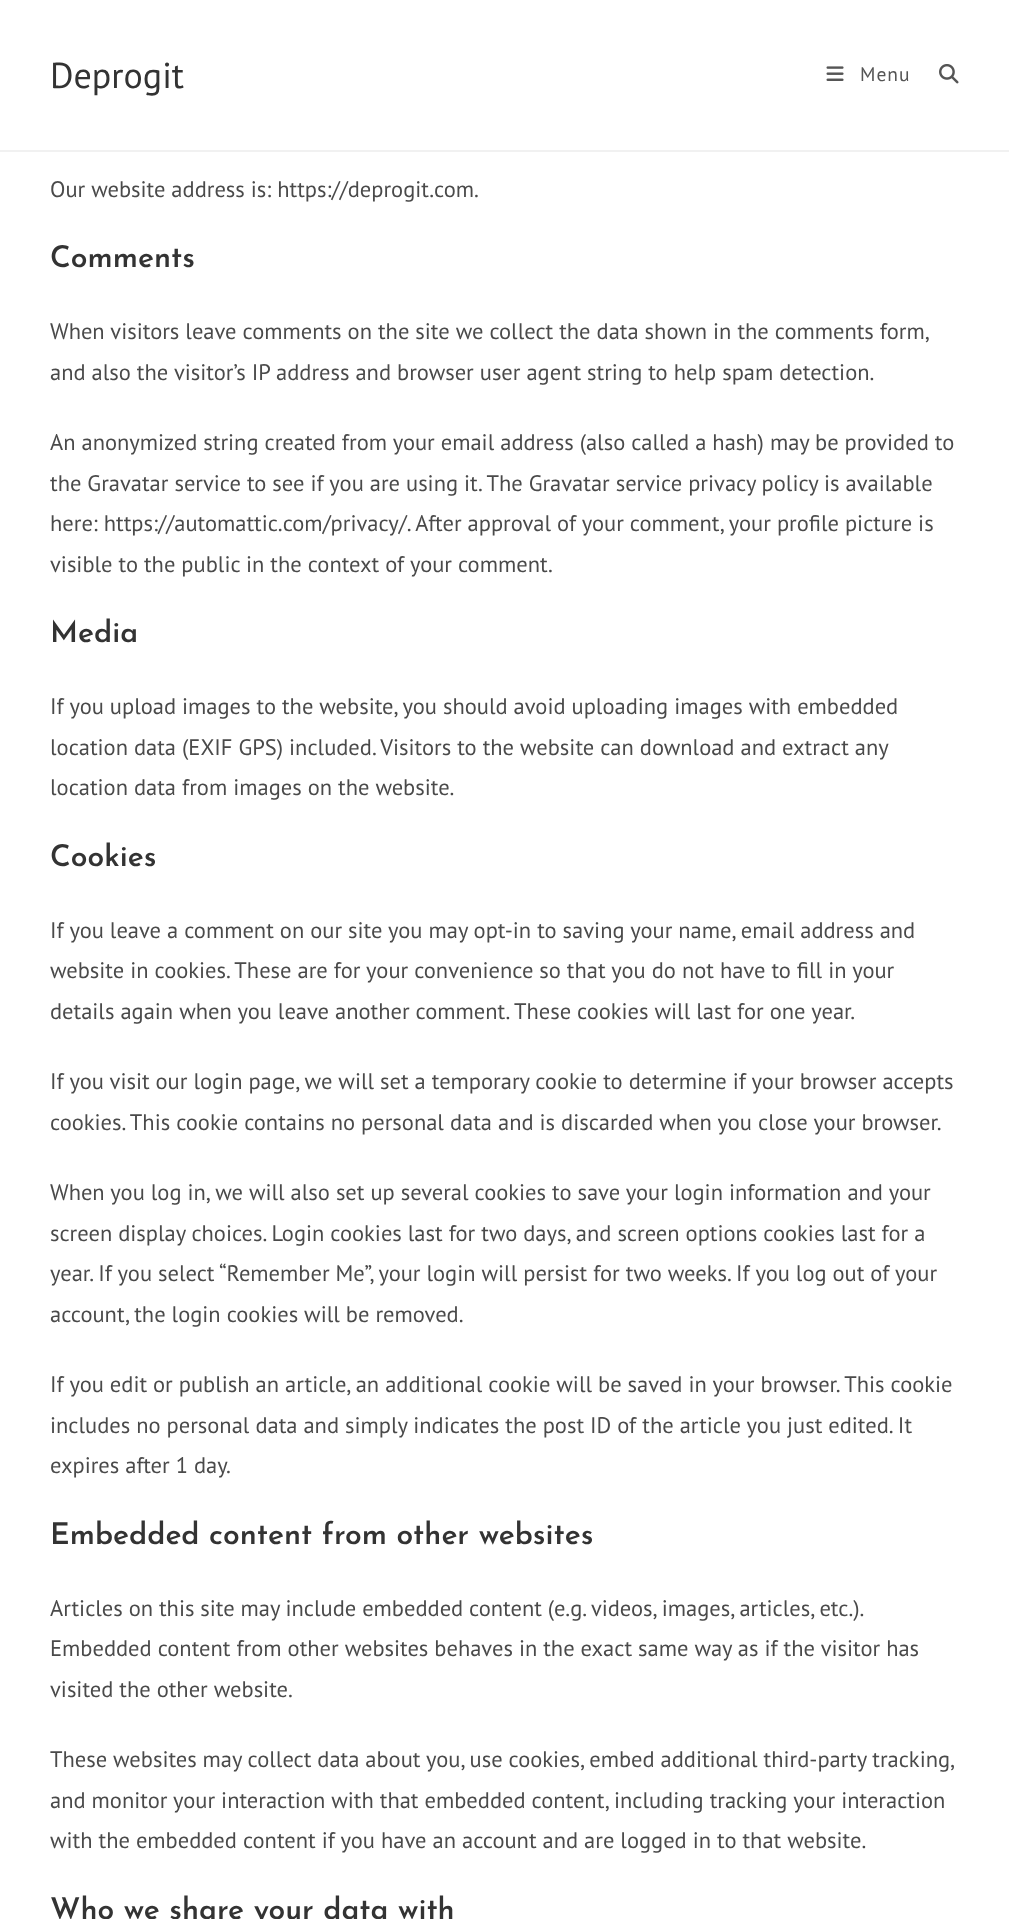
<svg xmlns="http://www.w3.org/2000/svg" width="1009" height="1919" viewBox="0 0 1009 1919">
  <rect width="100%" height="100%" fill="#ffffff"/>
  <rect x="0" y="150" width="1009" height="2" fill="#f1f1f1"/>
  <text x="50" y="88" font-family="PT Sans" font-size="36" fill="#333333">Deprogit</text>
  <image x="826" y="66" width="18" height="15" href="img1.png"/>
  <text x="860" y="81" font-family="PT Sans" font-size="19.5" letter-spacing="1" fill="#555555">Menu</text>
  <image x="939" y="64" width="20" height="20" href="img2.png"/>
  <text x="50" y="197" font-family="PT Sans" font-size="22.5" fill="#4a4a4a">Our website address is: https://deprogit.com.</text>
  <text x="50" y="267" font-family="Josefin Sans" font-size="30" font-weight="600" fill="#333333">Comments</text>
  <text x="50" y="339" font-family="PT Sans" font-size="22.5" fill="#4a4a4a">When visitors leave comments on the site we collect the data shown in the comments form,</text>
  <text x="50" y="380" font-family="PT Sans" font-size="22.5" fill="#4a4a4a">and also the visitor’s IP address and browser user agent string to help spam detection.</text>
  <text x="50" y="450" font-family="PT Sans" font-size="22.5" fill="#4a4a4a">An anonymized string created from your email address (also called a hash) may be provided to</text>
  <text x="50" y="491" font-family="PT Sans" font-size="22.5" fill="#4a4a4a">the Gravatar service to see if you are using it. The Gravatar service privacy policy is available</text>
  <text x="50" y="531" font-family="PT Sans" font-size="22.5" fill="#4a4a4a">here: https://automattic.com/privacy/. After approval of your comment, your profile picture is</text>
  <text x="50" y="572" font-family="PT Sans" font-size="22.5" fill="#4a4a4a">visible to the public in the context of your comment.</text>
  <text x="50" y="642" font-family="Josefin Sans" font-size="30" font-weight="600" fill="#333333">Media</text>
  <text x="50" y="714" font-family="PT Sans" font-size="22.5" fill="#4a4a4a">If you upload images to the website, you should avoid uploading images with embedded</text>
  <text x="50" y="755" font-family="PT Sans" font-size="22.5" fill="#4a4a4a">location data (EXIF GPS) included. Visitors to the website can download and extract any</text>
  <text x="50" y="795" font-family="PT Sans" font-size="22.5" fill="#4a4a4a">location data from images on the website.</text>
  <text x="50" y="866" font-family="Josefin Sans" font-size="30" font-weight="600" fill="#333333">Cookies</text>
  <text x="50" y="938" font-family="PT Sans" font-size="22.5" fill="#4a4a4a">If you leave a comment on our site you may opt-in to saving your name, email address and</text>
  <text x="50" y="978" font-family="PT Sans" font-size="22.5" fill="#4a4a4a">website in cookies. These are for your convenience so that you do not have to fill in your</text>
  <text x="50" y="1019" font-family="PT Sans" font-size="22.5" fill="#4a4a4a">details again when you leave another comment. These cookies will last for one year.</text>
  <text x="50" y="1089" font-family="PT Sans" font-size="22.5" fill="#4a4a4a">If you visit our login page, we will set a temporary cookie to determine if your browser accepts</text>
  <text x="50" y="1130" font-family="PT Sans" font-size="22.5" fill="#4a4a4a">cookies. This cookie contains no personal data and is discarded when you close your browser.</text>
  <text x="50" y="1200" font-family="PT Sans" font-size="22.5" fill="#4a4a4a">When you log in, we will also set up several cookies to save your login information and your</text>
  <text x="50" y="1241" font-family="PT Sans" font-size="22.5" fill="#4a4a4a">screen display choices. Login cookies last for two days, and screen options cookies last for a</text>
  <text x="50" y="1281" font-family="PT Sans" font-size="22.5" fill="#4a4a4a">year. If you select “Remember Me”, your login will persist for two weeks. If you log out of your</text>
  <text x="50" y="1322" font-family="PT Sans" font-size="22.5" fill="#4a4a4a">account, the login cookies will be removed.</text>
  <text x="50" y="1392" font-family="PT Sans" font-size="22.5" fill="#4a4a4a">If you edit or publish an article, an additional cookie will be saved in your browser. This cookie</text>
  <text x="50" y="1433" font-family="PT Sans" font-size="22.5" fill="#4a4a4a">includes no personal data and simply indicates the post ID of the article you just edited. It</text>
  <text x="50" y="1473" font-family="PT Sans" font-size="22.5" fill="#4a4a4a">expires after 1 day.</text>
  <text x="50" y="1544" font-family="Josefin Sans" font-size="30" font-weight="600" fill="#333333">Embedded content from other websites</text>
  <text x="50" y="1616" word-spacing="-0.1" font-family="PT Sans" font-size="22.5" fill="#4a4a4a">Articles on this site may include embedded content (e.g. videos, images, articles, etc.).</text>
  <text x="50" y="1656" font-family="PT Sans" font-size="22.5" fill="#4a4a4a">Embedded content from other websites behaves in the exact same way as if the visitor has</text>
  <text x="50" y="1697" font-family="PT Sans" font-size="22.5" fill="#4a4a4a">visited the other website.</text>
  <text x="50" y="1767" word-spacing="-0.1" font-family="PT Sans" font-size="22.5" fill="#4a4a4a">These websites may collect data about you, use cookies, embed additional third-party tracking,</text>
  <text x="50" y="1808" font-family="PT Sans" font-size="22.5" fill="#4a4a4a">and monitor your interaction with that embedded content, including tracking your interaction</text>
  <text x="50" y="1848" font-family="PT Sans" font-size="22.5" fill="#4a4a4a">with the embedded content if you have an account and are logged in to that website.</text>
  <text x="50" y="1919" font-family="Josefin Sans" font-size="30" font-weight="600" fill="#333333">Who we share your data with</text>
</svg>
